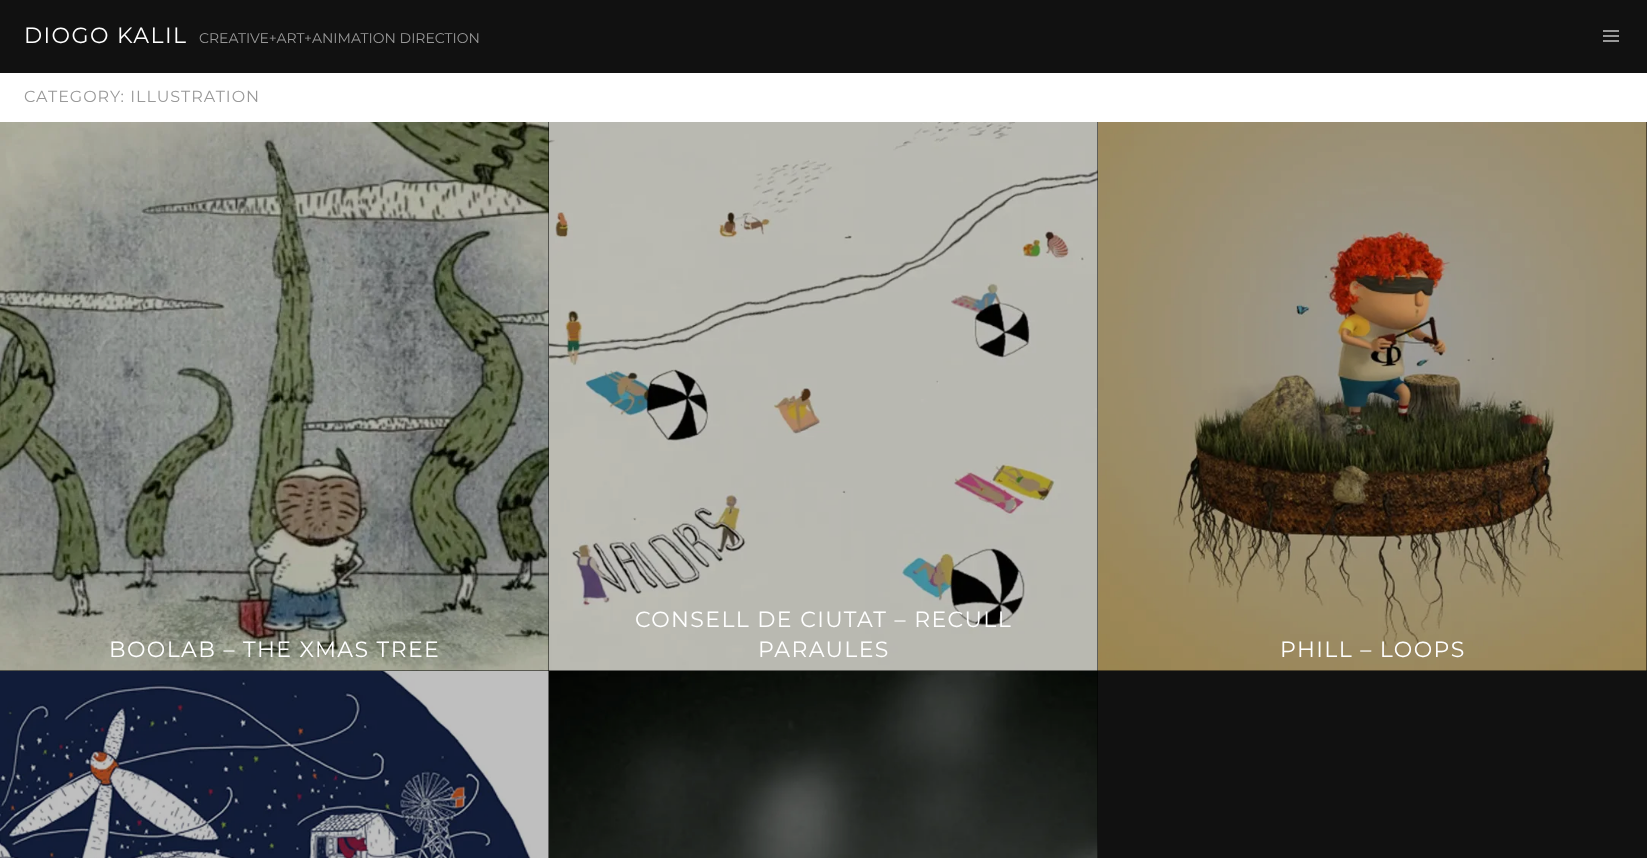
<svg xmlns="http://www.w3.org/2000/svg" width="1647" height="858" viewBox="0 0 1647 858">
  <rect width="100%" height="100%" fill="#111111"/>
  <text x="24" y="43" font-family="Montserrat" font-size="22" letter-spacing="1.4" fill="#ffffff">DIOGO KALIL</text>
  <text x="199" y="43" font-family="Montserrat" font-size="14" fill="#999999">CREATIVE+ART+ANIMATION DIRECTION</text>
  <image x="1603" y="30" width="16" height="12" href="img1.png"/>
  <rect x="0" y="73" width="1647" height="49" fill="#ffffff"/>
  <text x="24" y="102" font-family="Montserrat" font-size="16" letter-spacing="1" fill="#999999">CATEGORY: ILLUSTRATION</text>
  <rect x="0" y="122" width="1647" height="549" fill="#000000"/>
  <image x="0" y="122" width="549" height="549" href="img2.png"/>
  <text x="109" y="657" font-family="Montserrat" font-size="22" letter-spacing="1.4" fill="#ffffff">BOOLAB – THE XMAS TREE</text>
  <image x="549" y="122" width="549" height="549" href="img3.png"/>
  <text x="635" y="627" font-family="Montserrat" font-size="22" letter-spacing="1.4" fill="#ffffff">CONSELL DE CIUTAT – RECULL</text>
  <text x="758" y="657" font-family="Montserrat" font-size="22" letter-spacing="1.4" fill="#ffffff">PARAULES</text>
  <image x="1098" y="122" width="549" height="549" href="img4.png"/>
  <text x="1280" y="657" font-family="Montserrat" font-size="22" letter-spacing="1.4" fill="#ffffff">PHILL – LOOPS</text>
  <rect x="548" y="671" width="1" height="187" fill="#000000"/>
  <image x="0" y="671" width="549" height="187" href="img5.png"/>
  <rect x="1097" y="671" width="1" height="187" fill="#000000"/>
  <image x="549" y="671" width="549" height="187" href="img6.png"/>
</svg>
